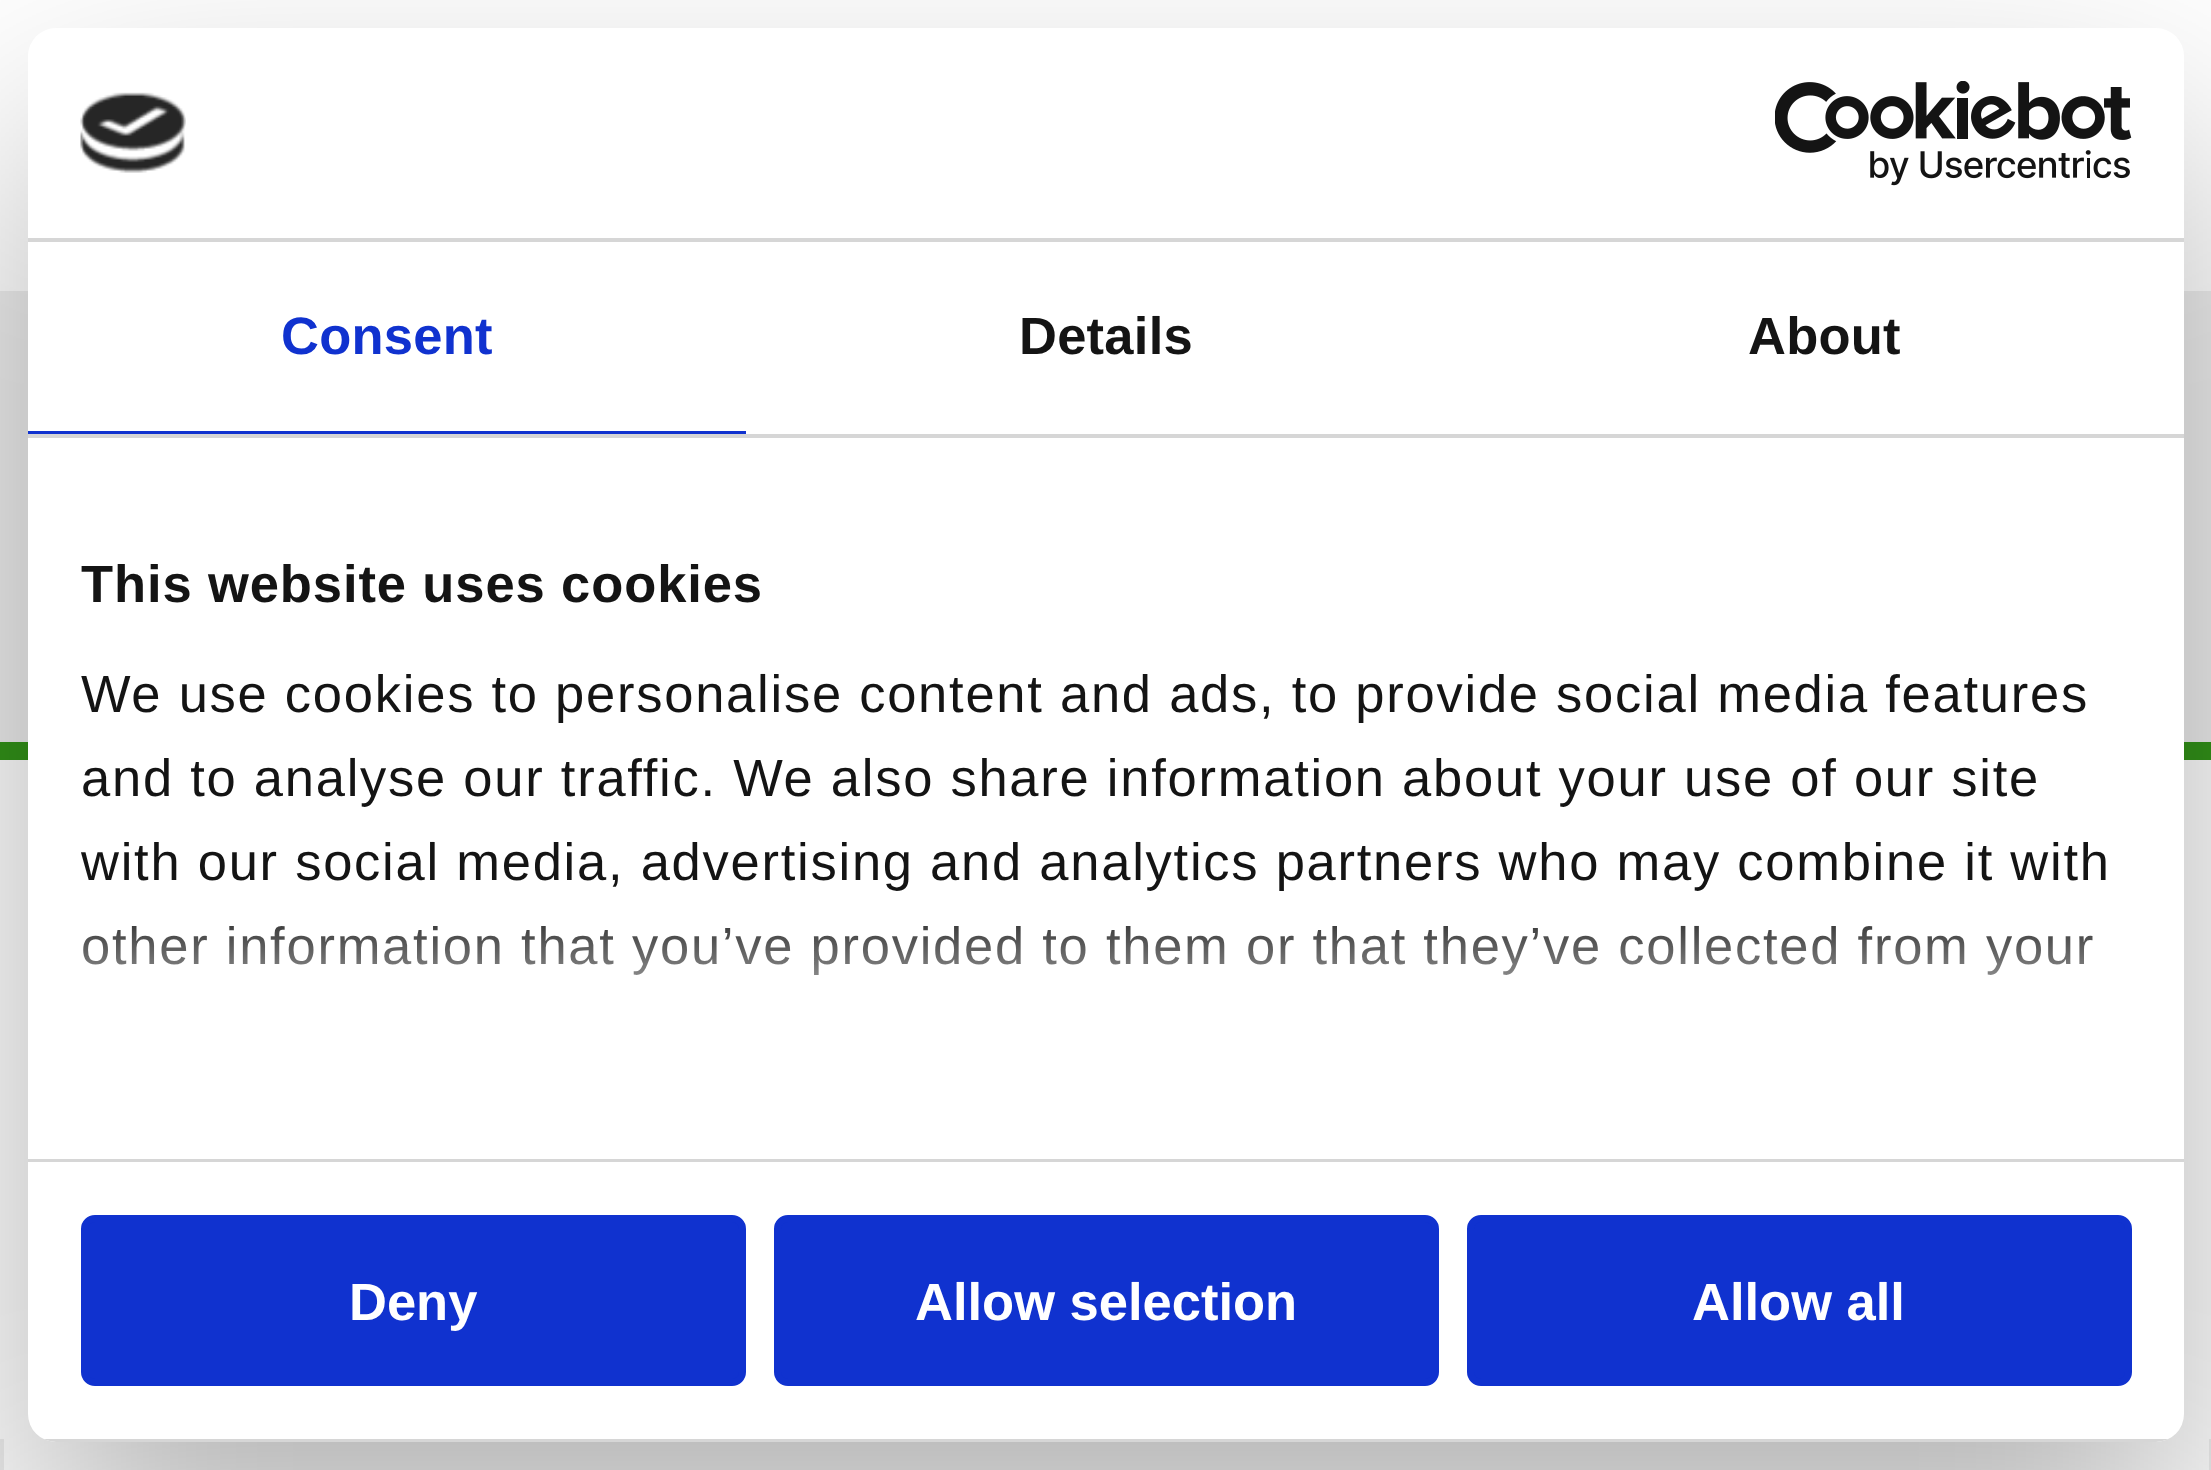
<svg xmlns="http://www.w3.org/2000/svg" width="2211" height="1470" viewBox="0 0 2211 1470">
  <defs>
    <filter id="blur1" x="-50%" y="-200%" width="200%" height="500%"><feGaussianBlur stdDeviation="119"/></filter>
    <linearGradient id="g1" gradientUnits="userSpaceOnUse" x1="1083" y1="1159" x2="1083" y2="896"><stop offset="0" stop-color="#ffffff"/><stop offset="0.5" stop-color="#ffffff" stop-opacity="0.8"/><stop offset="1" stop-color="#ffffff" stop-opacity="0"/></linearGradient>
    <clipPath id="clip1"><rect x="28" y="28" width="2156" height="1414" rx="28"/></clipPath>
  </defs>
  <rect width="100%" height="100%" fill="#ffffff"/>
  <rect x="0" y="291" width="2211" height="451" fill="#eeeeee"/>
  <rect x="0" y="742" width="2211" height="18" fill="#329318"/>
  <rect x="2209" y="1439" width="2" height="31" fill="#eeeeee"/>
  <rect x="0" y="1439" width="4" height="31" fill="#eeeeee"/>
  <rect x="28" y="140" width="2156" height="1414" rx="28" fill="#000000" fill-opacity="0.3" filter="url(#blur1)"/>
  <rect x="28" y="28" width="2156" height="1414" rx="28" fill="#ffffff"/>
  <rect x="28" y="238" width="2156" height="4" fill="#d6d6d6"/>
  <image x="80" y="92" width="106" height="81" href="img1.png"/>
  <image x="1775" y="81" width="357" height="105" href="img2.png"/>
  <rect x="28" y="434" width="2156" height="4" fill="#d6d6d6"/>
  <rect x="28" y="431" width="718" height="3" fill="#1032cf"/>
  <text x="281" y="354" font-family="Liberation Sans" font-size="52.5" font-weight="bold" letter-spacing="0.25" fill="#1032cf">Consent</text>
  <text x="1019" y="354" font-family="Liberation Sans" font-size="52.5" font-weight="bold" letter-spacing="0.25" fill="#141414">Details</text>
  <text x="1748" y="354" font-family="Liberation Sans" font-size="52.5" font-weight="bold" letter-spacing="0.25" fill="#141414">About</text>
  <rect x="28" y="1159" width="2156" height="3" fill="#d6d6d6"/>
  <text x="81" y="602" font-family="Liberation Sans" font-size="52.5" font-weight="bold" letter-spacing="0.9" fill="#141414">This website uses cookies</text>
  <text x="81" y="712" font-family="Liberation Sans" font-size="52.5" letter-spacing="1.75" fill="#141414">We use cookies to personalise content and ads, to provide social media features</text>
  <text x="81" y="796" font-family="Liberation Sans" font-size="52.5" letter-spacing="1.75" fill="#141414">and to analyse our traffic. We also share information about your use of our site</text>
  <text x="81" y="880" font-family="Liberation Sans" font-size="52.5" letter-spacing="1.75" fill="#141414">with our social media, advertising and analytics partners who may combine it with</text>
  <text x="81" y="964" font-family="Liberation Sans" font-size="52.5" letter-spacing="1.75" fill="#141414">other information that you’ve provided to them or that they’ve collected from your</text>
  <rect x="82" y="925" width="2010" height="50" fill="url(#g1)"/>
  <g clip-path="url(#clip1)">
    <rect x="43" y="1439" width="2126" height="3" fill="#d6d6d6"/>
  </g>
  <rect x="84.5" y="1218.5" width="658" height="164" rx="10.5" fill="#1032cf" stroke="#1032cf" stroke-width="7"/>
  <text x="349" y="1320" font-family="Liberation Sans" font-size="52.5" font-weight="bold" fill="#ffffff">Deny</text>
  <rect x="777.5" y="1218.5" width="658" height="164" rx="10.5" fill="#1032cf" stroke="#1032cf" stroke-width="7"/>
  <text x="915" y="1320" font-family="Liberation Sans" font-size="52.5" font-weight="bold" fill="#ffffff">Allow selection</text>
  <rect x="1470.5" y="1218.5" width="658" height="164" rx="10.5" fill="#1032cf" stroke="#1032cf" stroke-width="7"/>
  <text x="1692" y="1320" font-family="Liberation Sans" font-size="52.5" font-weight="bold" fill="#ffffff">Allow all</text>
</svg>
